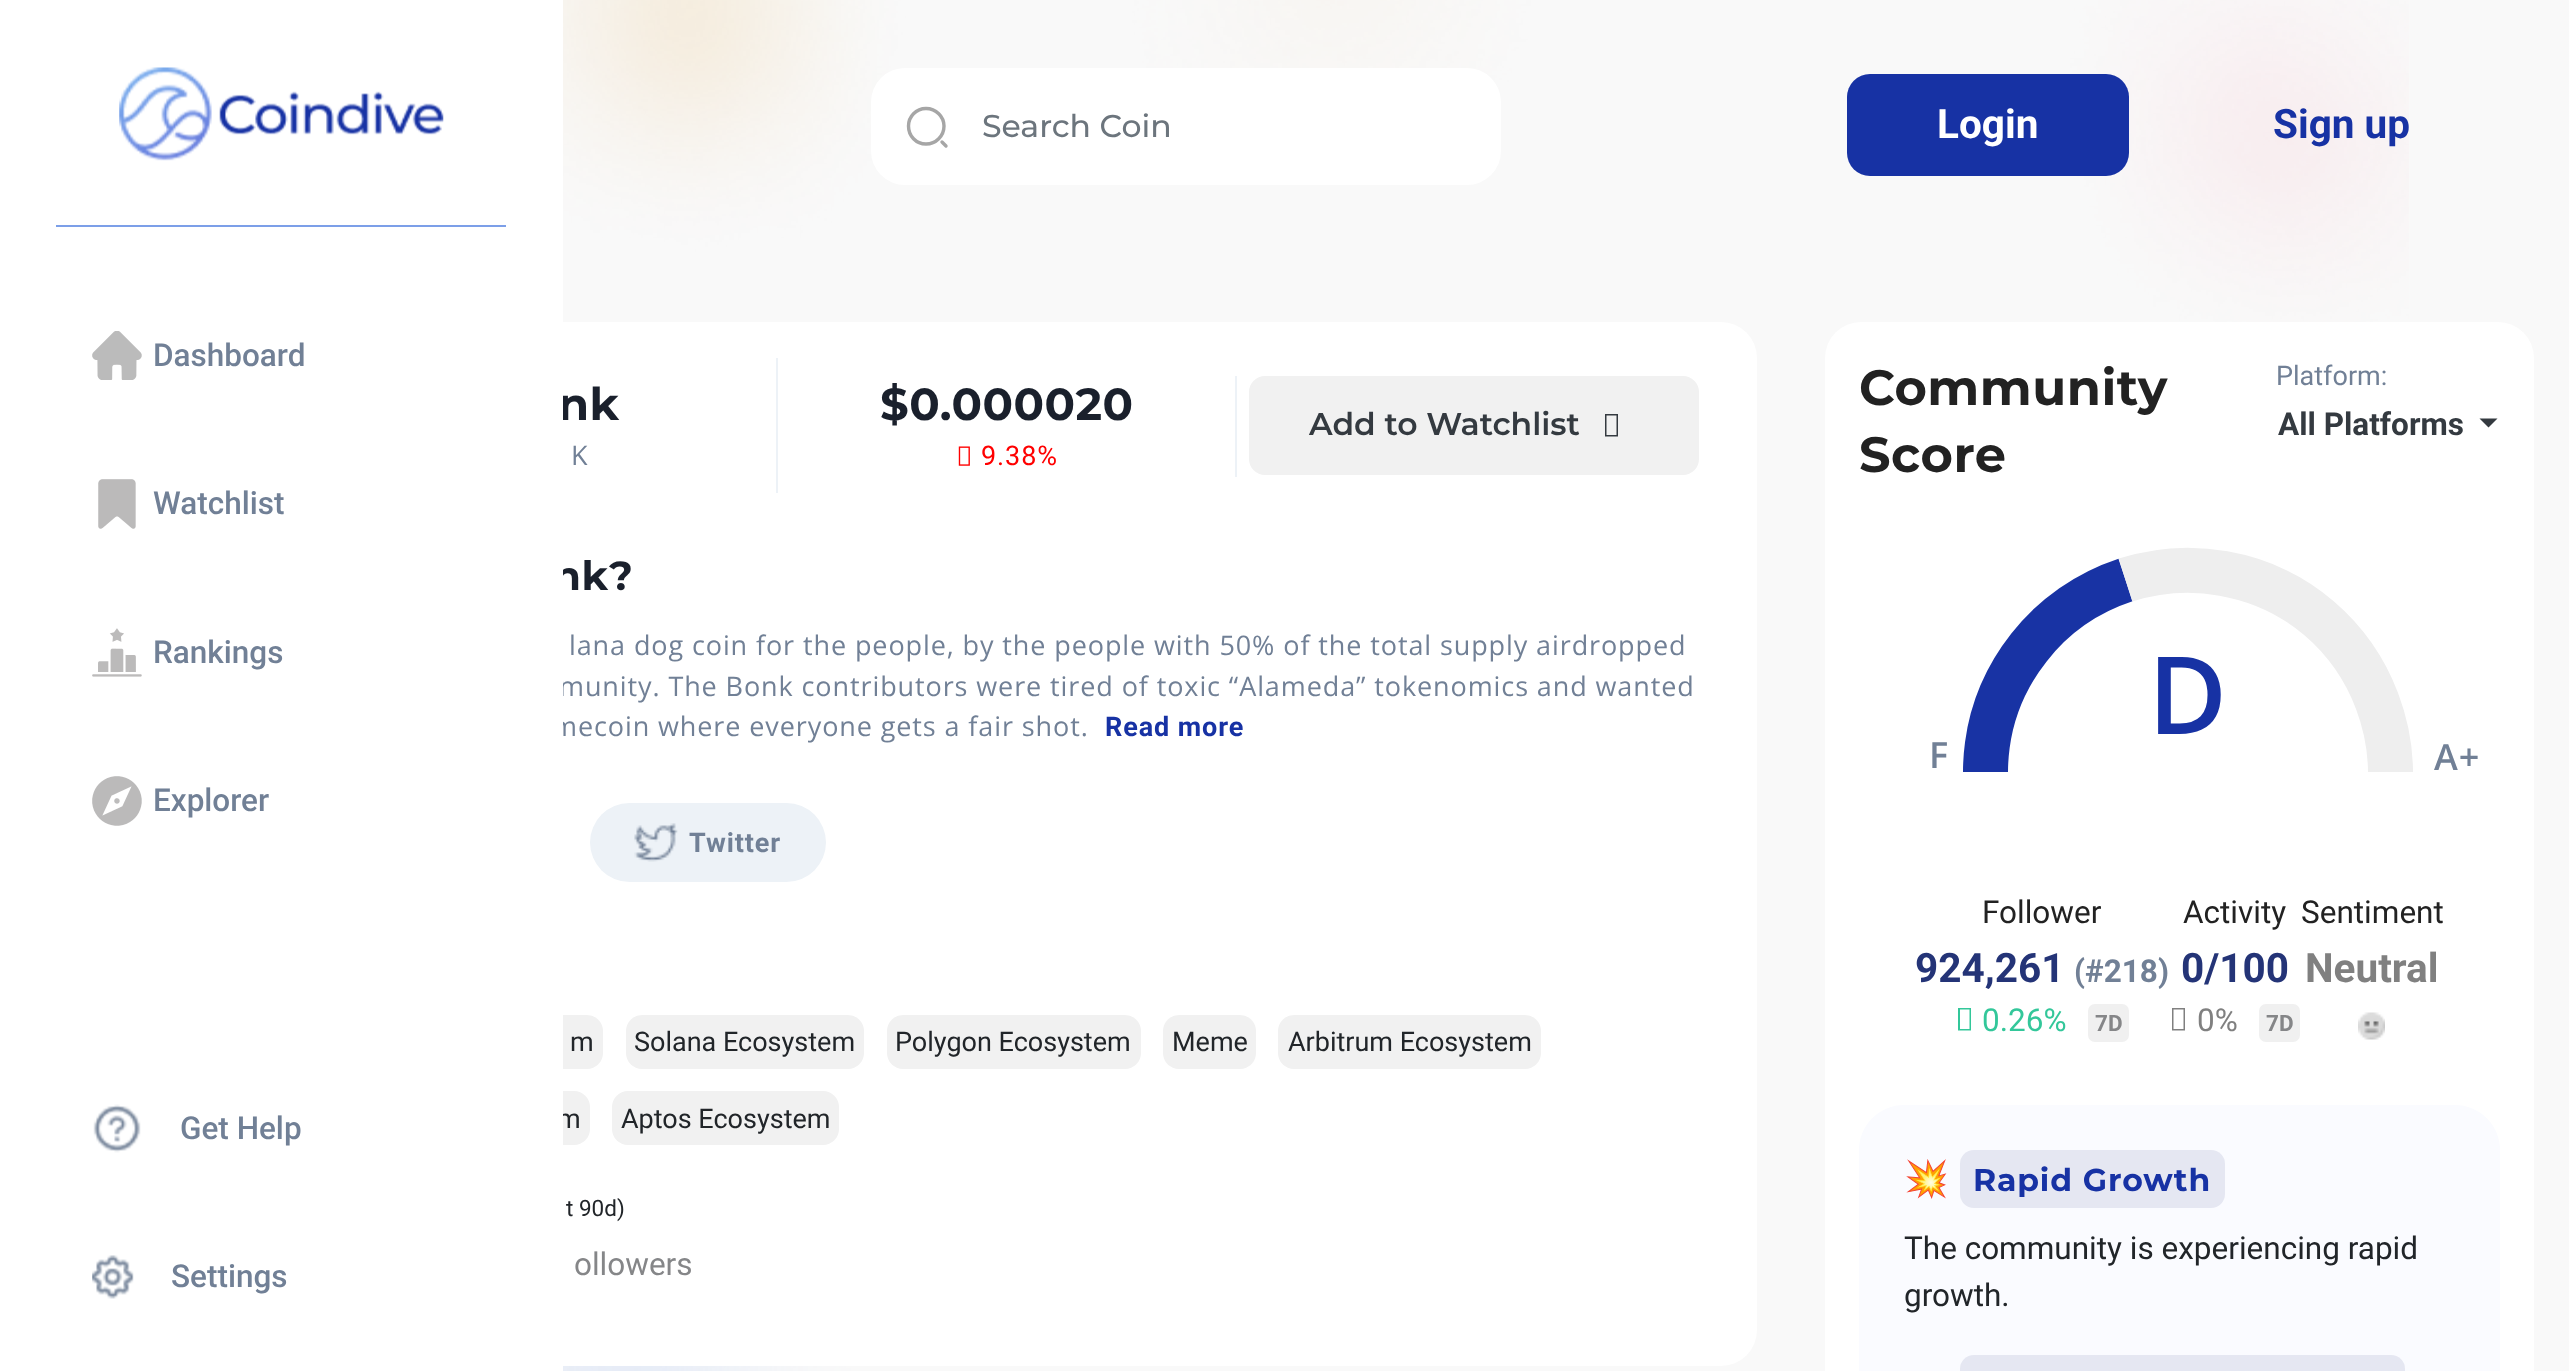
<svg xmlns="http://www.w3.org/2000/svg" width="2569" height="1371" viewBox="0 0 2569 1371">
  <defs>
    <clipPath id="clip1"><rect x="1897" y="547" width="585" height="225"/></clipPath>
  </defs>
  <rect width="100%" height="100%" fill="#f9f9f9"/>
  <image x="563" y="0" width="1846" height="1371" href="img1.png"/>
  <rect x="272" y="322" width="1485" height="1044" rx="36" fill="#ffffff"/>
  <text x="558" y="420" font-family="Montserrat" font-size="45" font-weight="bold" letter-spacing="0.5" fill="#1a202c">nk</text>
  <text x="553" y="590" font-family="Montserrat" font-size="40.5" font-weight="bold" letter-spacing="0.5" fill="#1a202c">nk?</text>
  <text x="559" y="696" font-family="Open Sans" font-size="27" letter-spacing="0.9" fill="#718096">munity. The Bonk contributors were tired of toxic “Alameda” tokenomics and wanted</text>
  <text x="552" y="736" font-family="Open Sans" font-size="27" letter-spacing="0.9" fill="#718096">mecoin where everyone gets a fair shot.</text>
  <rect x="317" y="1015" width="286" height="54" rx="16" fill="#f1f1f1"/>
  <rect x="317" y="1091" width="273" height="54" rx="16" fill="#f1f1f1"/>
  <text x="557" y="1128" font-family="Roboto" font-size="27" fill="#212529">m</text>
  <rect x="0" y="0" width="563" height="1371" fill="#ffffff"/>
  <image x="119" y="67" width="93" height="94" href="img2.png"/>
  <image x="219" y="91" width="225" height="44" href="img3.png"/>
  <rect x="56" y="225" width="450" height="2" fill="#7c9fe8"/>
  <image x="92" y="331" width="50" height="49" href="img4.png"/>
  <text x="153" y="366" font-family="Roboto" font-size="31.5" font-weight="500" fill="#718096">Dashboard</text>
  <image x="98" y="479" width="38" height="50" href="img5.png"/>
  <text x="153" y="514" font-family="Roboto" font-size="31.5" font-weight="500" fill="#718096">Watchlist</text>
  <image x="92" y="628" width="50" height="49" href="img6.png"/>
  <text x="153" y="663" font-family="Roboto" font-size="31.5" font-weight="500" fill="#718096">Rankings</text>
  <image x="92" y="776" width="50" height="50" href="img7.png"/>
  <text x="153" y="811" font-family="Roboto" font-size="31.5" font-weight="500" fill="#718096">Explorer</text>
  <image x="93" y="1104" width="48" height="49" href="img8.png"/>
  <text x="180" y="1139" font-family="Roboto" font-size="31.5" font-weight="500" fill="#718096">Get Help</text>
  <image x="92" y="1255" width="42" height="44" href="img9.png"/>
  <text x="171" y="1287" font-family="Roboto" font-size="31.5" font-weight="500" fill="#718096">Settings</text>
  <rect x="871" y="68" width="630" height="117" rx="34" fill="#ffffff"/>
  <path d="M926 144C936 144 944 136 944 126C944 116.5 936 108.5 926 108.5C916 108.5 908.5 116.5 908.5 126C908.5 136 916 144 926 144ZM946 146L942 142" fill="none" stroke="#a6a6a6" stroke-width="3.4" stroke-linecap="round" stroke-linejoin="round"/>
  <text x="982" y="137" font-family="Montserrat" font-size="31.5" font-weight="500" fill="#6c757d">Search Coin</text>
  <rect x="1847" y="74" width="282" height="102" rx="23" fill="#1732a4"/>
  <text x="1937" y="138" font-family="Roboto" font-size="40.5" font-weight="bold" fill="#ffffff">Login</text>
  <text x="2273" y="138" font-family="Roboto" font-size="40.5" font-weight="bold" fill="#1732a4">Sign up</text>
  <rect x="776" y="358" width="2" height="135" fill="#edf2f7"/>
  <text x="571" y="465" font-family="Open Sans" font-size="27" letter-spacing="0.9" fill="#718096">K</text>
  <rect x="1235" y="376" width="2" height="101" fill="#edf2f7"/>
  <text x="880" y="420" font-family="Montserrat" font-size="45" font-weight="bold" letter-spacing="0.5" fill="#1a202c">$0.000020</text>
  <image x="958" y="446" width="12" height="20" href="img10.png"/>
  <text x="981" y="465" font-family="Roboto" font-size="27" letter-spacing="0.9" fill="#ff0000">9.38%</text>
  <rect x="1250" y="377" width="448" height="97" rx="15" fill="#f1f1f1" stroke="#f1f1f1" stroke-width="2"/>
  <text x="1309" y="435" font-family="Montserrat" font-size="31.5" font-weight="600" fill="#343a40">Add to Watchlist</text>
  <path d="M1605 436.5V414H1618V436.5ZM1606.5 435H1616.5V415.5H1606.5Z" fill="#343a40"/>
  <text x="569" y="655" font-family="Open Sans" font-size="27" letter-spacing="0.9" fill="#718096">lana dog coin for the people, by the people with 50% of the total supply airdropped</text>
  <text x="1105" y="736" font-family="Roboto" font-size="27" font-weight="bold" letter-spacing="0.9" fill="#1732a4">Read more</text>
  <rect x="590" y="803" width="236" height="79" rx="39.5" fill="#edf2f7"/>
  <image x="634" y="823" width="44" height="39" href="img11.png"/>
  <text x="689" y="852" font-family="Roboto" font-size="27" font-weight="bold" letter-spacing="0.9" fill="#718096">Twitter</text>
  <text x="570" y="1051" font-family="Roboto" font-size="27" fill="#212529">m</text>
  <rect x="626" y="1015" width="238" height="54" rx="16" fill="#f1f1f1"/>
  <text x="634" y="1051" font-family="Roboto" font-size="27" fill="#212529">Solana Ecosystem</text>
  <rect x="887" y="1015" width="254" height="54" rx="16" fill="#f1f1f1"/>
  <text x="895" y="1051" font-family="Roboto" font-size="27" fill="#212529">Polygon Ecosystem</text>
  <rect x="1163" y="1015" width="93" height="54" rx="16" fill="#f1f1f1"/>
  <text x="1172" y="1051" font-family="Roboto" font-size="27" fill="#212529">Meme</text>
  <rect x="1278" y="1015" width="263" height="54" rx="16" fill="#f1f1f1"/>
  <text x="1288" y="1051" font-family="Roboto" font-size="27" fill="#212529">Arbitrum Ecosystem</text>
  <rect x="612" y="1091" width="227" height="54" rx="16" fill="#f1f1f1"/>
  <text x="621" y="1128" font-family="Roboto" font-size="27" fill="#212529">Aptos Ecosystem</text>
  <text x="566" y="1216" font-family="Roboto" font-size="22.5" fill="#212529">t 90d)</text>
  <text x="574" y="1275" font-family="Roboto" font-size="31.5" fill="#858688">ollowers</text>
  <rect x="1825" y="322" width="709" height="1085" rx="36" fill="#ffffff"/>
  <text x="1859" y="405" font-family="Montserrat" font-size="49.5" font-weight="bold" letter-spacing="0.5" fill="#222222">Community</text>
  <text x="1859" y="472" font-family="Montserrat" font-size="49.5" font-weight="bold" letter-spacing="0.5" fill="#222222">Score</text>
  <text x="2276" y="385" font-family="Roboto" font-size="27" fill="#718096">Platform:</text>
  <text x="2278" y="435" font-family="Roboto" font-size="31.5" font-weight="bold" fill="#343a40">All Platforms</text>
  <path d="M2479.5 418.5H2497.5L2488.5 427.5Z" fill="#343a40"/>
  <g clip-path="url(#clip1)">
    <path d="M2251 965C2219.5 975.5 2185.5 978 2153 972C2002.5 945.5 1934.5 767 2029 647.5C2053.5 616 2087.5 592.5 2125.5 580" fill="none" stroke="#1833a4" stroke-width="45"/>
    <path d="M2125.5 580C2157 570 2191 567.5 2223.5 573.5C2373.5 600 2441.5 778 2347 898C2322.5 929.5 2288.5 953 2251 965" fill="none" stroke="#eeeeee" stroke-width="45"/>
  </g>
  <text x="2148" y="734" font-family="Open Sans" font-size="108" font-weight="600" letter-spacing="0.9" fill="#1732a4">D</text>
  <text x="1929" y="768" font-family="Open Sans" font-size="36" font-weight="600" letter-spacing="0.9" fill="#718096">F</text>
  <text x="2434" y="770" font-family="Open Sans" font-size="36" font-weight="600" letter-spacing="0.9" fill="#718096">A+</text>
  <text x="1982" y="923" font-family="Roboto" font-size="31.5" fill="#222222">Follower</text>
  <text x="1915" y="982" font-family="Roboto" font-size="40.5" font-weight="bold" fill="#243477">924,261</text>
  <text x="2074" y="982" font-family="Roboto" font-size="31.5" font-weight="bold" fill="#718096">(#218)</text>
  <path d="M1958 1030.5V1008H1971V1030.5ZM1960 1029H1969.5V1009.5H1960Z" fill="#33c79a"/>
  <text x="1982" y="1031" font-family="Roboto" font-size="31.5" fill="#33c79a">0.26%</text>
  <rect x="2088" y="1004" width="41" height="38" rx="7" fill="#f0f0f0"/>
  <text x="2095" y="1031" font-family="Roboto" font-size="22.5" font-weight="bold" fill="#858688">7D</text>
  <text x="2183" y="923" font-family="Roboto" font-size="31.5" fill="#222222">Activity</text>
  <text x="2181" y="982" font-family="Roboto" font-size="40.5" font-weight="bold" fill="#243477">0/100</text>
  <path d="M2172 1030.5V1008H2185V1030.5ZM2173.5 1029H2183.5V1009.5H2173.5Z" fill="#808080"/>
  <text x="2197" y="1031" font-family="Roboto" font-size="31.5" fill="#808080">0%</text>
  <rect x="2259" y="1004" width="41" height="38" rx="7" fill="#f0f0f0"/>
  <text x="2266" y="1031" font-family="Roboto" font-size="22.5" font-weight="bold" fill="#858688">7D</text>
  <text x="2301" y="923" font-family="Roboto" font-size="31.5" fill="#222222">Sentiment</text>
  <text x="2305" y="982" font-family="Roboto" font-size="40.5" font-weight="bold" fill="#808080">Neutral</text>
  <image x="2358" y="1012" width="27" height="28" href="img12.png"/>
  <rect x="1859" y="1105" width="641" height="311" rx="45" fill="#fafbff"/>
  <text x="1904" y="1191" font-family="Noto Color Emoji" font-size="36" font-weight="bold" letter-spacing="0.9" fill="#718096">💥</text>
  <rect x="1960" y="1150" width="265" height="58" rx="14" fill="#e5e7f2"/>
  <text x="1973" y="1191" font-family="Montserrat" font-size="31.5" font-weight="bold" letter-spacing="0.9" fill="#1732a4">Rapid Growth</text>
  <text x="1904" y="1259" font-family="Roboto" font-size="31.5" fill="#212529">The community is experiencing rapid</text>
  <text x="1904" y="1306" font-family="Roboto" font-size="31.5" fill="#212529">growth.</text>
  <rect x="1960" y="1355" width="445" height="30" rx="14" fill="#e5e7f2"/>
</svg>
